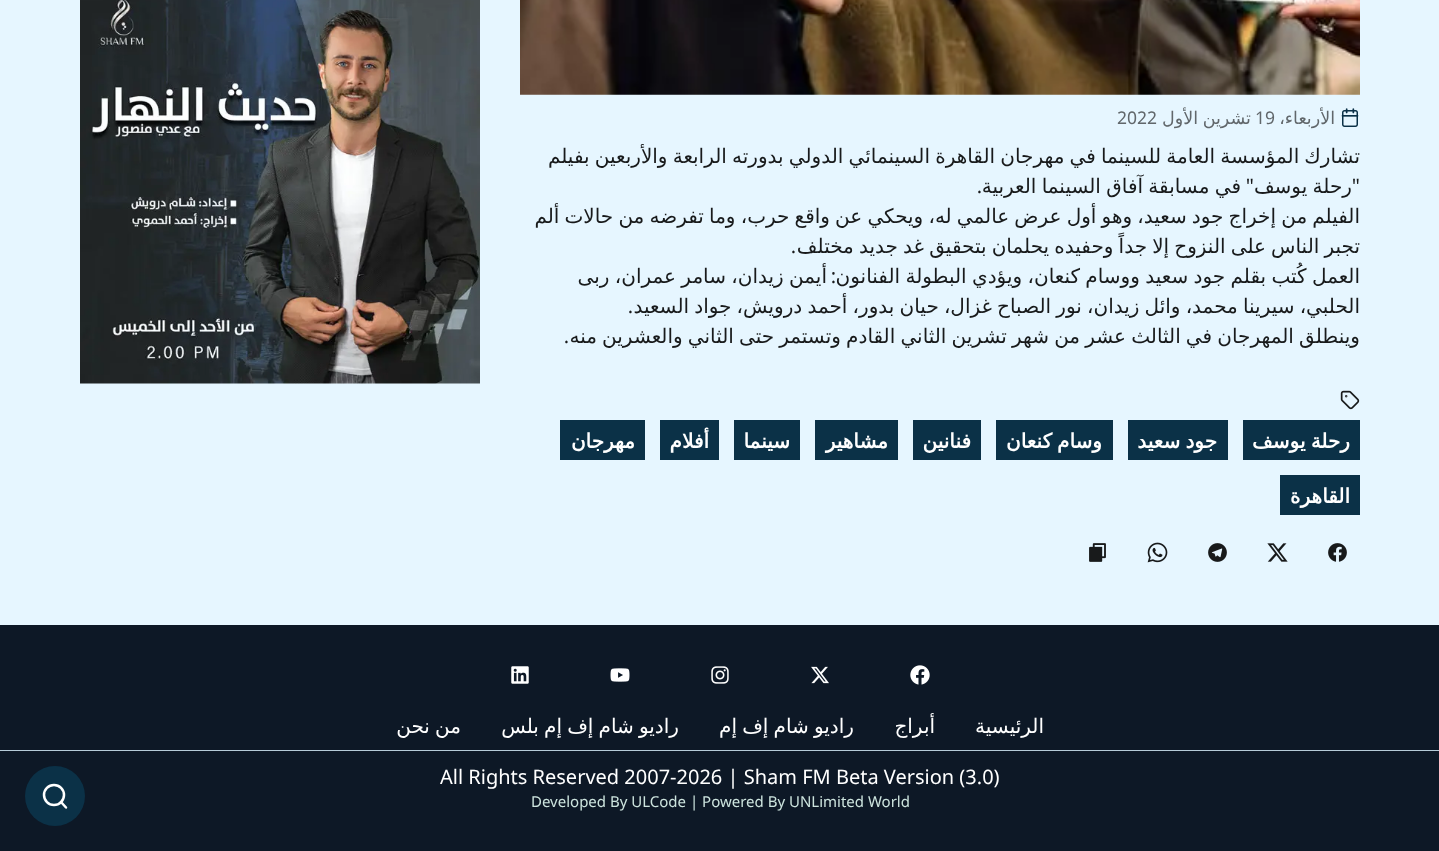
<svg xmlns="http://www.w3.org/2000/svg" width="1439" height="851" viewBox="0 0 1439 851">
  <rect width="100%" height="100%" fill="#e6f6ff"/>
  <image x="520" y="0" width="840" height="95" href="img1.png"/>
  <image x="1341" y="108" width="18" height="19" href="img2.png"/>
  <text x="1335" y="124" font-family="DejaVu Sans" font-size="17.5" direction="rtl" fill="#61676b">الأربعاء،</text>
  <text x="1255" y="124" font-family="Noto Sans" font-size="17.5" fill="#61676b">19</text>
  <text x="1251" y="124" word-spacing="-1" font-family="DejaVu Sans" font-size="17.5" direction="rtl" fill="#61676b">تشرين الأول</text>
  <text x="1117" y="124" font-family="Noto Sans" font-size="17.5" fill="#61676b">2022</text>
  <text x="1360" y="163" word-spacing="-1.2" font-family="DejaVu Sans" font-size="20" direction="rtl" fill="#181a1b">تشارك المؤسسة العامة للسينما في مهرجان القاهرة السينمائي الدولي بدورته الرابعة والأربعين بفيلم</text>
  <text x="1360" y="193" font-family="Noto Sans" font-size="20" direction="rtl" fill="#181a1b">"</text>
  <text x="1352" y="193" word-spacing="-1" font-family="DejaVu Sans" font-size="20" direction="rtl" fill="#181a1b">رحلة يوسف</text>
  <text x="1254" y="193" font-family="Noto Sans" font-size="20" direction="rtl" fill="#181a1b">"</text>
  <text x="1241" y="193" word-spacing="-1" font-family="DejaVu Sans" font-size="20" direction="rtl" fill="#181a1b">في مسابقة آفاق السينما العربية</text>
  <text x="982" y="193" font-family="Noto Sans" font-size="20" direction="rtl" fill="#181a1b">.</text>
  <text x="1360" y="223" word-spacing="-1.2" font-family="DejaVu Sans" font-size="20" direction="rtl" fill="#181a1b">الفيلم من إخراج جود سعيد، وهو أول عرض عالمي له، ويحكي عن واقع حرب، وما تفرضه من حالات ألم</text>
  <text x="1360" y="253" word-spacing="-1.2" font-family="DejaVu Sans" font-size="20" direction="rtl" fill="#181a1b">تجبر الناس على النزوح إلا جداً وحفيده يحلمان بتحقيق غد جديد مختلف</text>
  <text x="796" y="253" font-family="Noto Sans" font-size="20" direction="rtl" fill="#181a1b">.</text>
  <text x="1360" y="283" word-spacing="-1" font-family="DejaVu Sans" font-size="20" direction="rtl" fill="#181a1b">العمل كُتب بقلم جود سعيد ووسام كنعان، ويؤدي البطولة الفنانون</text>
  <text x="836" y="283" font-family="Noto Sans" font-size="20" direction="rtl" fill="#181a1b">:</text>
  <text x="827" y="283" word-spacing="-1" font-family="DejaVu Sans" font-size="20" direction="rtl" fill="#181a1b">أيمن زيدان، سامر عمران، ربى</text>
  <text x="1360" y="313" word-spacing="-1.2" font-family="DejaVu Sans" font-size="20" direction="rtl" fill="#181a1b">الحلبي، سيرينا محمد، وائل زيدان، نور الصباح غزال، حيان بدور، أحمد درويش، جواد السعيد</text>
  <text x="633" y="313" font-family="Noto Sans" font-size="20" direction="rtl" fill="#181a1b">.</text>
  <text x="1360" y="343" word-spacing="-1.2" font-family="DejaVu Sans" font-size="20" direction="rtl" fill="#181a1b">وينطلق المهرجان في الثالث عشر من شهر تشرين الثاني القادم وتستمر حتى الثاني والعشرين منه</text>
  <text x="569" y="343" font-family="Noto Sans" font-size="20" direction="rtl" fill="#181a1b">.</text>
  <image x="1340" y="390" width="20" height="20" href="img3.png"/>
  <rect x="1243" y="420" width="117" height="40" fill="#0b3147"/>
  <text x="1350" y="448" word-spacing="-1.2" font-family="DejaVu Sans" font-size="20" font-weight="bold" direction="rtl" fill="#ffffff">رحلة يوسف</text>
  <rect x="1128" y="420" width="100" height="40" fill="#0b3147"/>
  <text x="1217" y="448" word-spacing="-1.2" font-family="DejaVu Sans" font-size="20" font-weight="bold" direction="rtl" fill="#ffffff">جود سعيد</text>
  <rect x="996" y="420" width="117" height="40" fill="#0b3147"/>
  <text x="1102" y="448" word-spacing="-1.2" font-family="DejaVu Sans" font-size="20" font-weight="bold" direction="rtl" fill="#ffffff">وسام كنعان</text>
  <rect x="913" y="420" width="68" height="40" fill="#0b3147"/>
  <text x="971" y="448" font-family="DejaVu Sans" font-size="20" font-weight="bold" direction="rtl" fill="#ffffff">فنانين</text>
  <rect x="815" y="420" width="83" height="40" fill="#0b3147"/>
  <text x="888" y="448" font-family="DejaVu Sans" font-size="20" font-weight="bold" direction="rtl" fill="#ffffff">مشاهير</text>
  <rect x="734" y="420" width="66" height="40" fill="#0b3147"/>
  <text x="790" y="448" font-family="DejaVu Sans" font-size="20" font-weight="bold" direction="rtl" fill="#ffffff">سينما</text>
  <rect x="660" y="420" width="59" height="40" fill="#0b3147"/>
  <text x="709" y="448" font-family="DejaVu Sans" font-size="20" font-weight="bold" direction="rtl" fill="#ffffff">أفلام</text>
  <rect x="560" y="420" width="85" height="40" fill="#0b3147"/>
  <text x="635" y="448" font-family="DejaVu Sans" font-size="20" font-weight="bold" direction="rtl" fill="#ffffff">مهرجان</text>
  <rect x="1280" y="475" width="80" height="40" fill="#0b3147"/>
  <text x="1350" y="503" font-family="DejaVu Sans" font-size="20" font-weight="bold" direction="rtl" fill="#ffffff">القاهرة</text>
  <image x="1328" y="543" width="19" height="19" href="img4.png"/>
  <image x="1267" y="543" width="21" height="19" href="img5.png"/>
  <image x="1208" y="543" width="19" height="19" href="img6.png"/>
  <image x="1147" y="542" width="21" height="21" href="img7.png"/>
  <image x="1089" y="543" width="17" height="19" href="img8.png"/>
  <image x="80" y="0" width="400" height="384" href="img9.png"/>
  <rect x="0" y="625" width="1439" height="226" fill="#0d1826"/>
  <image x="910" y="665" width="20" height="20" href="img10.png"/>
  <image x="811" y="666" width="18" height="18" href="img11.png"/>
  <image x="711" y="666" width="18" height="18" href="img12.png"/>
  <image x="610" y="668" width="20" height="14" href="img13.png"/>
  <image x="511" y="666" width="18" height="18" href="img14.png"/>
  <text x="1044" y="733" font-family="DejaVu Sans" font-size="20" direction="rtl" fill="#ffffff">الرئيسية</text>
  <text x="935" y="733" font-family="DejaVu Sans" font-size="20" direction="rtl" fill="#ffffff">أبراج</text>
  <text x="854" y="733" word-spacing="-1.2" font-family="DejaVu Sans" font-size="20" direction="rtl" fill="#ffffff">راديو شام إف إم</text>
  <text x="679" y="733" word-spacing="-1.2" font-family="DejaVu Sans" font-size="20" direction="rtl" fill="#ffffff">راديو شام إف إم بلس</text>
  <text x="461" y="733" word-spacing="-1.2" font-family="DejaVu Sans" font-size="20" direction="rtl" fill="#ffffff">من نحن</text>
  <rect x="0" y="750" width="1439" height="1" fill="#b6cbd8"/>
  <text x="440" y="784" font-family="Noto Sans" font-size="20" fill="#ffffff">All Rights Reserved 2007-2026 | Sham FM Beta Version (3.0)</text>
  <text x="531" y="807" font-family="Noto Sans" font-size="15" fill="#cde4de">Developed By ULCode | Powered By UNLimited World</text>
  <circle cx="55" cy="796" r="30" fill="#0b3147"/>
  <circle cx="54" cy="795" r="10" fill="none" stroke="#ffffff" stroke-width="2.5"/>
  <path d="M66 807.5L61 802" fill="none" stroke="#ffffff" stroke-width="2.5" stroke-linecap="round" stroke-linejoin="round"/>
</svg>
